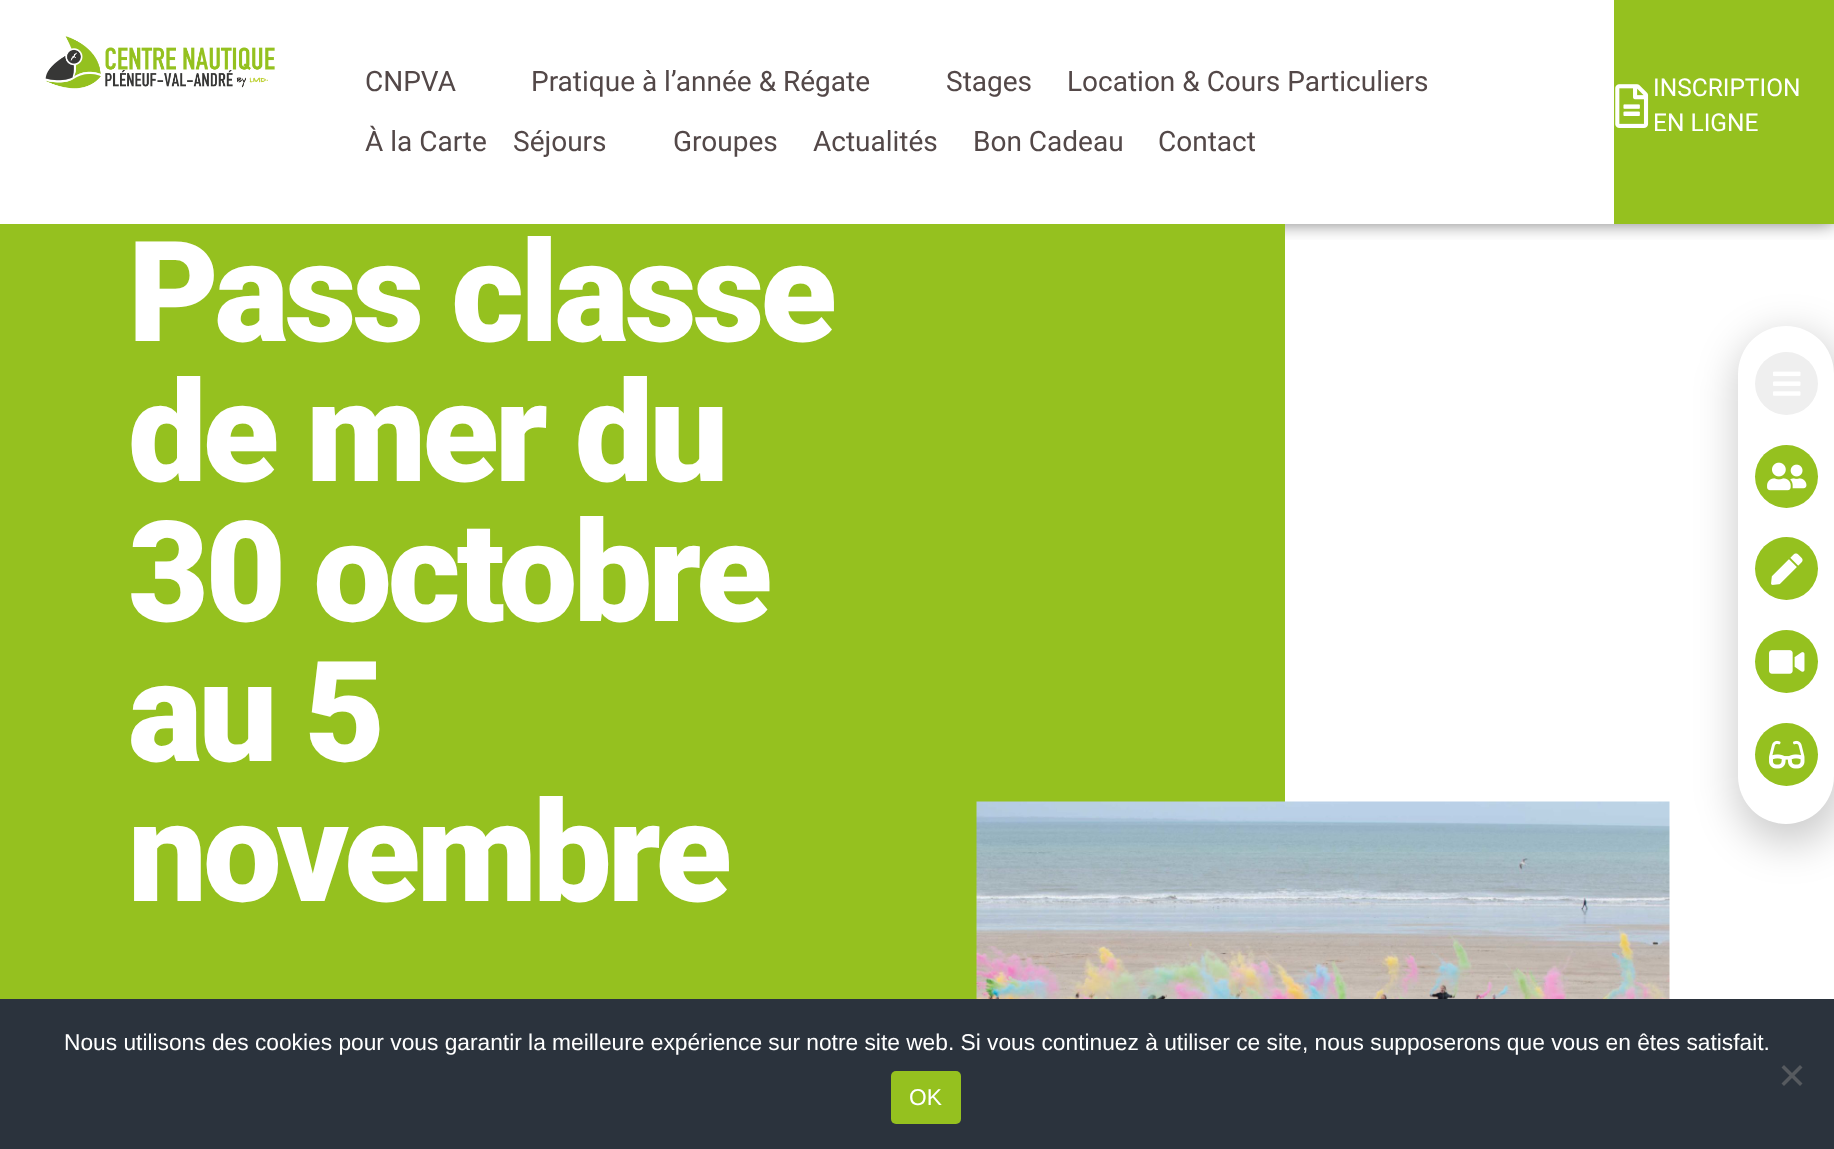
<svg xmlns="http://www.w3.org/2000/svg" width="1834" height="1149" viewBox="0 0 1834 1149">
  <defs>
    <clipPath id="clip1"><rect x="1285" y="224" width="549" height="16"/></clipPath>
    <filter id="blur1" x="-50%" y="-200%" width="200%" height="500%"><feGaussianBlur stdDeviation="9"/></filter>
    <filter id="blur2" x="-50%" y="-200%" width="200%" height="500%"><feGaussianBlur stdDeviation="20"/></filter>
  </defs>
  <rect width="100%" height="100%" fill="#ffffff"/>
  <g clip-path="url(#clip1)">
    <rect x="0" y="0" width="1834" height="224" fill="#000000" fill-opacity="0.5" filter="url(#blur1)"/>
  </g>
  <image x="45" y="36" width="230" height="53" href="img1.png"/>
  <text x="365" y="91" font-family="Roboto" font-size="28" fill="#534848">CNPVA</text>
  <text x="531" y="91" font-family="Roboto" font-size="28" fill="#534848">Pratique à l’année &amp; Régate</text>
  <text x="946" y="91" font-family="Roboto" font-size="28" fill="#534848">Stages</text>
  <text x="1067" y="91" font-family="Roboto" font-size="28" fill="#534848">Location &amp; Cours Particuliers</text>
  <text x="365" y="151" font-family="Roboto" font-size="28" fill="#534848">À la Carte</text>
  <text x="513" y="151" font-family="Roboto" font-size="28" fill="#534848">Séjours</text>
  <text x="673" y="151" font-family="Roboto" font-size="28" fill="#534848">Groupes</text>
  <text x="813" y="151" font-family="Roboto" font-size="28" fill="#534848">Actualités</text>
  <text x="973" y="151" font-family="Roboto" font-size="28" fill="#534848">Bon Cadeau</text>
  <text x="1158" y="151" font-family="Roboto" font-size="28" fill="#534848">Contact</text>
  <rect x="1614" y="0" width="220" height="224" fill="#95c11f"/>
  <image x="1615" y="84" width="34" height="44" href="img2.png"/>
  <text x="1653" y="96" font-family="Roboto" font-size="24.5" fill="#ffffff">INSCRIPTION</text>
  <text x="1653" y="131" font-family="Roboto" font-size="24.5" fill="#ffffff">EN LIGNE</text>
  <rect x="0" y="224" width="1285" height="775" fill="#95c11f"/>
  <text x="128" y="341" font-family="Roboto" font-size="140" font-weight="900" letter-spacing="-4" fill="#ffffff">Pass classe</text>
  <text x="128" y="481" font-family="Roboto" font-size="140" font-weight="900" letter-spacing="-4" fill="#ffffff">de mer du</text>
  <text x="128" y="621" font-family="Roboto" font-size="140" font-weight="900" letter-spacing="-4" fill="#ffffff">30 octobre</text>
  <text x="128" y="761" font-family="Roboto" font-size="140" font-weight="900" letter-spacing="-4" fill="#ffffff">au 5</text>
  <text x="128" y="901" font-family="Roboto" font-size="140" font-weight="900" letter-spacing="-4" fill="#ffffff">novembre</text>
  <image x="976" y="801" width="694" height="198" href="img3.png"/>
  <rect x="1736" y="334" width="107" height="510" rx="53.5" fill="#000000" fill-opacity="0.2" filter="url(#blur2)"/>
  <rect x="1738" y="326" width="96" height="498" rx="48" fill="#ffffff"/>
  <circle cx="1786.5" cy="383.5" r="31.5" fill="#efefef"/>
  <image x="1773" y="371" width="28" height="25" href="img4.png"/>
  <circle cx="1786.5" cy="476.5" r="31.5" fill="#95c11f"/>
  <image x="1767" y="462" width="40" height="29" href="img5.png"/>
  <circle cx="1786.5" cy="568.5" r="31.5" fill="#95c11f"/>
  <image x="1771" y="553" width="32" height="32" href="img6.png"/>
  <circle cx="1786.5" cy="661.5" r="31.5" fill="#95c11f"/>
  <image x="1769" y="650" width="36" height="24" href="img7.png"/>
  <circle cx="1786.5" cy="754.5" r="31.5" fill="#95c11f"/>
  <image x="1769" y="740" width="36" height="29" href="img8.png"/>
  <rect x="0" y="999" width="1834" height="150" fill="#2b333d"/>
  <text x="64" y="1050" font-family="Liberation Sans" font-size="22.75" fill="#ffffff">Nous utilisons des cookies pour vous garantir la meilleure expérience sur notre site web. Si vous continuez à utiliser ce site, nous supposerons que vous en êtes satisfait.</text>
  <path d="M1800 1065L1802.5 1067.5L1784 1086L1781.5 1083.5Z" fill="#565a5f"/>
  <path d="M1781.5 1067.5L1784 1065L1802.5 1083.5L1800 1086Z" fill="#565a5f"/>
  <rect x="891" y="1071" width="70" height="53" rx="5" fill="#95c11f"/>
  <text x="909" y="1105" font-family="Liberation Sans" font-size="22.75" fill="#ffffff">OK</text>
</svg>
